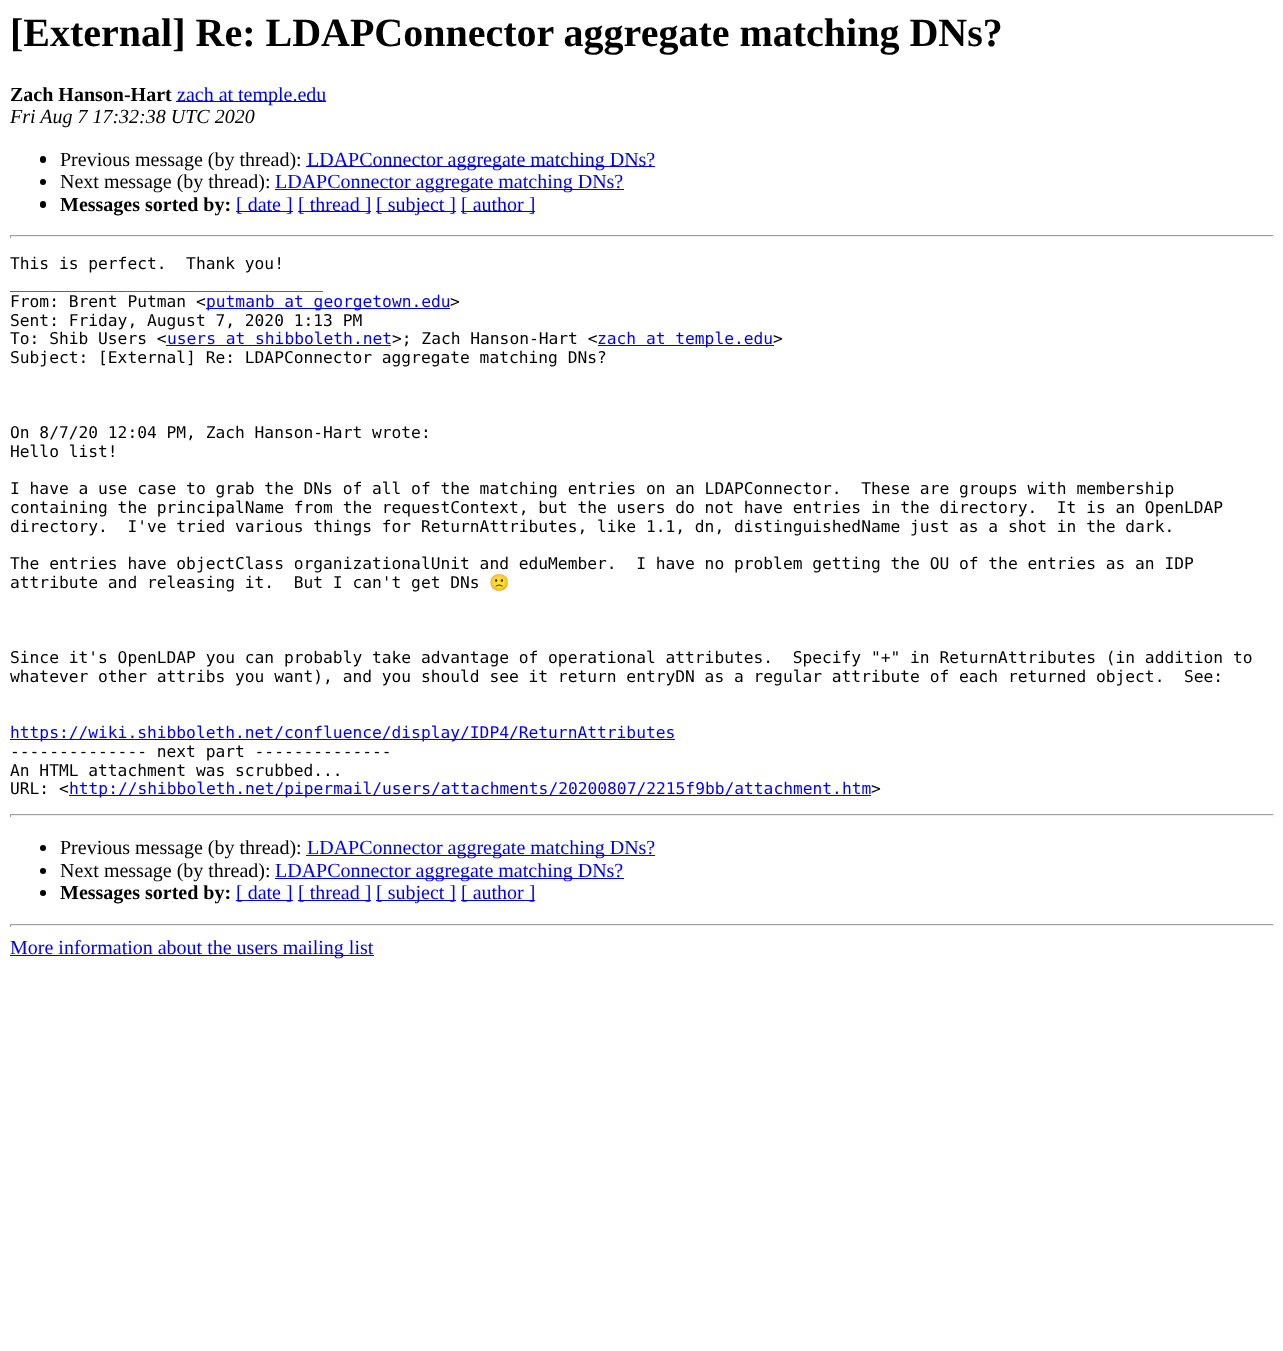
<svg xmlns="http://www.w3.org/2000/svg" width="1283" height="1351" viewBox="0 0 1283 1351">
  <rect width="100%" height="100%" fill="#ffffff"/>
  <text x="10" y="46" font-family="Liberation Serif" font-size="40" font-weight="bold" fill="#000000">[External] Re: LDAPConnector aggregate matching DNs?</text>
  <text x="10" y="101" font-family="Liberation Serif" font-size="20" font-weight="bold" fill="#000000">Zach Hanson-Hart</text>
  <rect x="176" y="101" width="150" height="1" fill="#0000ee"/>
  <text x="177" y="101" font-family="Liberation Serif" font-size="20" fill="#0000ee">zach at temple.edu</text>
  <text x="10" y="123" font-family="Liberation Serif" font-size="20" font-style="italic" fill="#000000">Fri Aug 7 17:32:38 UTC 2020</text>
  <rect x="40" y="156" width="6" height="7" rx="3" fill="#000000"/>
  <text x="60" y="166" font-family="Liberation Serif" font-size="20" fill="#000000">Previous message (by thread):</text>
  <rect x="306" y="166" width="349" height="1" fill="#0000ee"/>
  <text x="307" y="166" font-family="Liberation Serif" font-size="20" fill="#0000ee">LDAPConnector aggregate matching DNs?</text>
  <circle cx="43" cy="182" r="3" fill="#000000"/>
  <text x="60" y="188" font-family="Liberation Serif" font-size="20" fill="#000000">Next message (by thread):</text>
  <rect x="275" y="189" width="349" height="1" fill="#0000ee"/>
  <text x="275" y="188" font-family="Liberation Serif" font-size="20" fill="#0000ee">LDAPConnector aggregate matching DNs?</text>
  <rect x="40" y="201" width="6" height="7" rx="3" fill="#000000"/>
  <text x="60" y="211" font-family="Liberation Serif" font-size="20" font-weight="bold" fill="#000000">Messages sorted by:</text>
  <rect x="236" y="211" width="57" height="1" fill="#0000ee"/>
  <text x="236" y="211" font-family="Liberation Serif" font-size="20" fill="#0000ee">[ date ]</text>
  <rect x="298" y="211" width="73" height="1" fill="#0000ee"/>
  <text x="298" y="211" font-family="Liberation Serif" font-size="20" fill="#0000ee">[ thread ]</text>
  <rect x="376" y="211" width="80" height="1" fill="#0000ee"/>
  <text x="376" y="211" font-family="Liberation Serif" font-size="20" fill="#0000ee">[ subject ]</text>
  <rect x="461" y="211" width="74" height="1" fill="#0000ee"/>
  <text x="461" y="211" font-family="Liberation Serif" font-size="20" fill="#0000ee">[ author ]</text>
  <rect x="10" y="235" width="1264" height="1" fill="#9f9f9f"/>
  <rect x="1273" y="235" width="1" height="3" fill="#eeeeee"/>
  <rect x="10" y="236" width="1264" height="1" fill="#eeeeee"/>
  <rect x="10" y="235" width="1" height="3" fill="#9f9f9f"/>
  <text x="10" y="269" font-family="DejaVu Sans Mono" font-size="16.25" fill="#000000" xml:space="preserve">This is perfect.  Thank you!</text>
  <text x="10" y="288" font-family="DejaVu Sans Mono" font-size="16.25" fill="#000000">________________________________</text>
  <text x="10" y="307" font-family="DejaVu Sans Mono" font-size="16.25" fill="#000000">From: Brent Putman &lt;</text>
  <rect x="206" y="308" width="244" height="1" fill="#0000ee"/>
  <text x="206" y="307" font-family="DejaVu Sans Mono" font-size="16.25" fill="#0000ee">putmanb at georgetown.edu</text>
  <text x="450" y="307" font-family="DejaVu Sans Mono" font-size="16.25" fill="#000000">&gt;</text>
  <text x="10" y="326" font-family="DejaVu Sans Mono" font-size="16.25" fill="#000000">Sent: Friday, August 7, 2020 1:13 PM</text>
  <text x="10" y="344" font-family="DejaVu Sans Mono" font-size="16.25" fill="#000000">To: Shib Users &lt;</text>
  <text x="167" y="344" font-family="DejaVu Sans Mono" font-size="16.25" fill="#0000ee">users at shibboleth.net</text>
  <rect x="166" y="345" width="225" height="1" fill="#0000ee"/>
  <text x="392" y="344" font-family="DejaVu Sans Mono" font-size="16.25" fill="#000000">&gt;; Zach Hanson-Hart &lt;</text>
  <rect x="598" y="345" width="176" height="1" fill="#0000ee"/>
  <text x="597" y="344" font-family="DejaVu Sans Mono" font-size="16.25" fill="#0000ee">zach at temple.edu</text>
  <text x="773" y="344" font-family="DejaVu Sans Mono" font-size="16.25" fill="#000000">&gt;</text>
  <text x="10" y="363" font-family="DejaVu Sans Mono" font-size="16.25" fill="#000000">Subject: [External] Re: LDAPConnector aggregate matching DNs?</text>
  <text x="10" y="438" font-family="DejaVu Sans Mono" font-size="16.25" fill="#000000">On 8/7/20 12:04 PM, Zach Hanson-Hart wrote:</text>
  <text x="10" y="457" font-family="DejaVu Sans Mono" font-size="16.25" fill="#000000">Hello list!</text>
  <text x="10" y="494" font-family="DejaVu Sans Mono" font-size="16.25" fill="#000000" xml:space="preserve">I have a use case to grab the DNs of all of the matching entries on an LDAPConnector.  These are groups with membership</text>
  <text x="10" y="513" font-family="DejaVu Sans Mono" font-size="16.25" fill="#000000" xml:space="preserve">containing the principalName from the requestContext, but the users do not have entries in the directory.  It is an OpenLDAP</text>
  <text x="10" y="532" font-family="DejaVu Sans Mono" font-size="16.25" fill="#000000" xml:space="preserve">directory.  I've tried various things for ReturnAttributes, like 1.1, dn, distinguishedName just as a shot in the dark.</text>
  <text x="10" y="569" font-family="DejaVu Sans Mono" font-size="16.25" fill="#000000" xml:space="preserve">The entries have objectClass organizationalUnit and eduMember.  I have no problem getting the OU of the entries as an IDP</text>
  <text x="10" y="588" font-family="DejaVu Sans Mono" font-size="16.25" fill="#000000" xml:space="preserve">attribute and releasing it.  But I can't get DNs</text>
  <text x="489" y="588" font-family="Noto Color Emoji" font-size="16.25" fill="#000000">🙁</text>
  <text x="10" y="663" font-family="DejaVu Sans Mono" font-size="16.25" fill="#000000" xml:space="preserve">Since it's OpenLDAP you can probably take advantage of operational attributes.  Specify "+" in ReturnAttributes (in addition to</text>
  <text x="10" y="682" font-family="DejaVu Sans Mono" font-size="16.25" fill="#000000" xml:space="preserve">whatever other attribs you want), and you should see it return entryDN as a regular attribute of each returned object.  See:</text>
  <rect x="10" y="739" width="665" height="1" fill="#0000ee"/>
  <text x="10" y="738" font-family="DejaVu Sans Mono" font-size="16.25" fill="#0000ee">https://wiki.shibboleth.net/confluence/display/IDP4/ReturnAttributes</text>
  <text x="10" y="757" font-family="DejaVu Sans Mono" font-size="16.25" fill="#000000">-------------- next part --------------</text>
  <text x="10" y="776" font-family="DejaVu Sans Mono" font-size="16.25" fill="#000000">An HTML attachment was scrubbed...</text>
  <text x="10" y="794" font-family="DejaVu Sans Mono" font-size="16.25" fill="#000000">URL: &lt;</text>
  <rect x="69" y="795" width="802" height="1" fill="#0000ee"/>
  <text x="69" y="794" font-family="DejaVu Sans Mono" font-size="16.25" fill="#0000ee">http://shibboleth.net/pipermail/users/attachments/20200807/2215f9bb/attachment.htm</text>
  <text x="871" y="794" font-family="DejaVu Sans Mono" font-size="16.25" fill="#000000">&gt;</text>
  <rect x="10" y="814" width="1264" height="1" fill="#9f9f9f"/>
  <rect x="1273" y="814" width="1" height="3" fill="#eeeeee"/>
  <rect x="10" y="815" width="1264" height="1" fill="#eeeeee"/>
  <rect x="10" y="814" width="1" height="3" fill="#9f9f9f"/>
  <circle cx="43" cy="848" r="3" fill="#000000"/>
  <text x="60" y="854" font-family="Liberation Serif" font-size="20" fill="#000000">Previous message (by thread):</text>
  <rect x="306" y="855" width="349" height="1" fill="#0000ee"/>
  <text x="307" y="854" font-family="Liberation Serif" font-size="20" fill="#0000ee">LDAPConnector aggregate matching DNs?</text>
  <circle cx="43" cy="871" r="3" fill="#000000"/>
  <text x="60" y="877" font-family="Liberation Serif" font-size="20" fill="#000000">Next message (by thread):</text>
  <rect x="275" y="878" width="349" height="1" fill="#0000ee"/>
  <text x="275" y="877" font-family="Liberation Serif" font-size="20" fill="#0000ee">LDAPConnector aggregate matching DNs?</text>
  <circle cx="43" cy="893" r="3" fill="#000000"/>
  <text x="60" y="899" font-family="Liberation Serif" font-size="20" font-weight="bold" fill="#000000">Messages sorted by:</text>
  <rect x="236" y="900" width="57" height="1" fill="#0000ee"/>
  <text x="236" y="899" font-family="Liberation Serif" font-size="20" fill="#0000ee">[ date ]</text>
  <rect x="298" y="900" width="73" height="1" fill="#0000ee"/>
  <text x="298" y="899" font-family="Liberation Serif" font-size="20" fill="#0000ee">[ thread ]</text>
  <rect x="376" y="900" width="80" height="1" fill="#0000ee"/>
  <text x="376" y="899" font-family="Liberation Serif" font-size="20" fill="#0000ee">[ subject ]</text>
  <rect x="461" y="900" width="74" height="1" fill="#0000ee"/>
  <text x="461" y="899" font-family="Liberation Serif" font-size="20" fill="#0000ee">[ author ]</text>
  <rect x="10" y="924" width="1264" height="1" fill="#9f9f9f"/>
  <rect x="1273" y="924" width="1" height="3" fill="#eeeeee"/>
  <rect x="10" y="925" width="1264" height="1" fill="#eeeeee"/>
  <rect x="10" y="924" width="1" height="3" fill="#9f9f9f"/>
  <rect x="10" y="955" width="364" height="1" fill="#0000ee"/>
  <text x="10" y="954" font-family="Liberation Serif" font-size="20" fill="#0000ee">More information about the users mailing list</text>
</svg>
